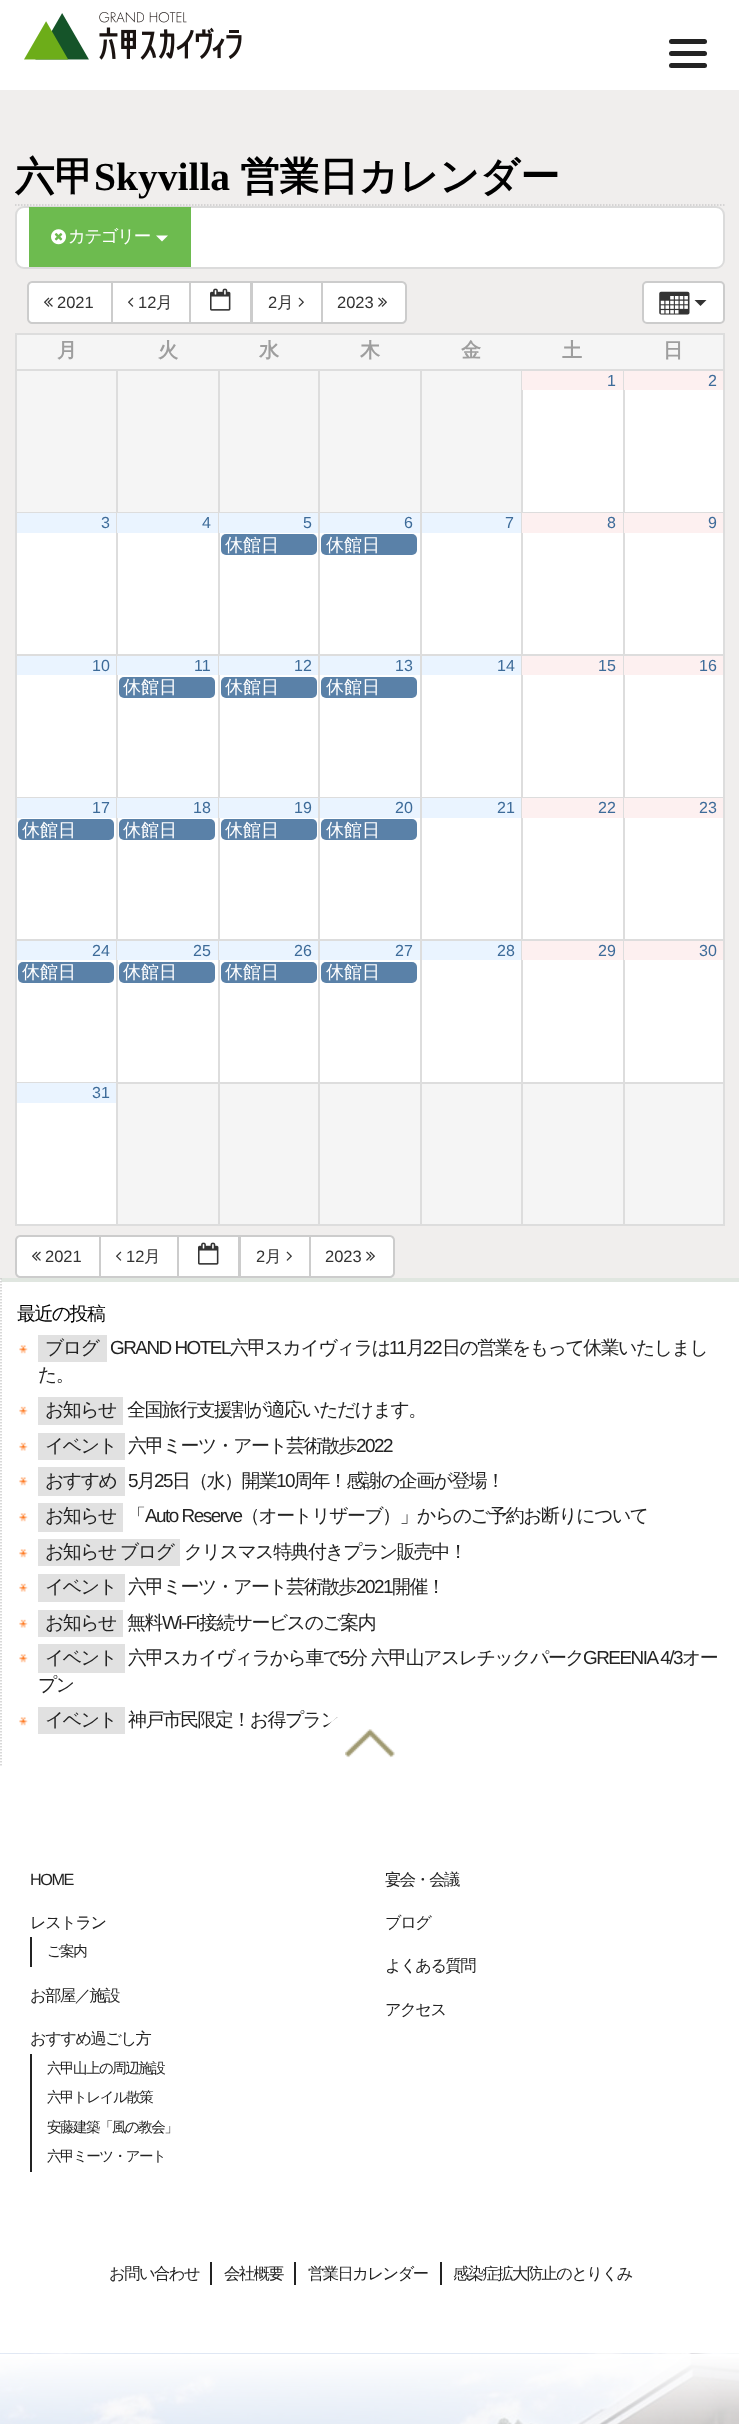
<svg xmlns="http://www.w3.org/2000/svg" width="739" height="2424" viewBox="0 0 739 2424">
  <rect width="100%" height="100%" fill="#ffffff"/>
  <image x="24" y="12" width="218" height="48" href="img1.png"/>
  <rect x="669" y="51" width="38" height="5" rx="2.5" fill="#232323"/>
  <rect x="669" y="39" width="38" height="5" rx="2.5" fill="#232323"/>
  <rect x="669" y="63" width="38" height="5" rx="2.5" fill="#232323"/>
  <rect x="0" y="90" width="739" height="1188" fill="#f0eeed"/>
  <path d="M15 205H724.5" fill="none" stroke="#cccccc" stroke-width="1.5" stroke-dasharray="1.5 1.5"/>
  <text x="15" y="190" font-family="WenQuanYi Zen Hei" font-size="39.5" font-weight="bold" fill="#000000">六甲</text>
  <text x="94" y="190" font-family="Liberation Serif" font-size="39.5" font-weight="bold" fill="#000000">Skyvilla</text>
  <text x="240" y="190" font-family="WenQuanYi Zen Hei" font-size="39.5" font-weight="bold" fill="#000000">営業日カレンダー</text>
  <rect x="16" y="207" width="708" height="61" rx="8" fill="#ffffff" stroke="#dbdbdb" stroke-width="2"/>
  <rect x="29" y="207" width="162" height="60" fill="#6dbb4f"/>
  <image x="51" y="229" width="15" height="16" href="img2.png"/>
  <text x="68" y="242" font-family="WenQuanYi Zen Hei" font-size="17.5" font-weight="500" letter-spacing="-1.5" fill="#ffffff">カテゴリー</text>
  <path d="M156 235.5H168L162 241.5Z" fill="#ffffff"/>
  <path d="M32 282H112V323H32C30 323 28 321 28 319V286C28 284 30 282 32 282Z" fill="#ffffff" stroke="#cccccc" stroke-width="2"/>
  <image x="44" y="297" width="9" height="10" href="img3.png"/>
  <text x="57" y="308" font-family="Liberation Sans" font-size="16.5" fill="#333333">2021</text>
  <rect x="112" y="282" width="78" height="41" fill="#ffffff" stroke="#cccccc" stroke-width="2"/>
  <image x="128" y="297" width="6" height="10" href="img4.png"/>
  <text x="138" y="308" font-family="Liberation Sans" font-size="16.5" fill="#333333">12</text>
  <text x="156" y="308" font-family="WenQuanYi Zen Hei" font-size="16.5" font-weight="500" fill="#333333">月</text>
  <rect x="190" y="282" width="61" height="41" fill="#ffffff" stroke="#cccccc" stroke-width="2"/>
  <image x="210" y="288" width="21" height="23" href="img5.png"/>
  <rect x="252" y="282" width="70" height="41" fill="#ffffff" stroke="#cccccc" stroke-width="2"/>
  <text x="268" y="308" font-family="Liberation Sans" font-size="16.5" fill="#333333">2</text>
  <text x="277" y="308" font-family="WenQuanYi Zen Hei" font-size="16.5" font-weight="500" fill="#333333">月</text>
  <image x="298" y="297" width="6" height="10" href="img6.png"/>
  <path d="M322 282H402C404 282 406 284 406 286V319C406 321 404 323 402 323H322Z" fill="#ffffff" stroke="#cccccc" stroke-width="2"/>
  <text x="337" y="308" font-family="Liberation Sans" font-size="16.5" fill="#333333">2023</text>
  <image x="378" y="297" width="9" height="10" href="img7.png"/>
  <rect x="643" y="282" width="81" height="41" rx="4" fill="#ffffff" stroke="#cccccc" stroke-width="2"/>
  <image x="659" y="291" width="31" height="24" href="img8.png"/>
  <path d="M694.5 300H706.5L700.5 306Z" fill="#333333"/>
  <rect x="17" y="390" width="706" height="834" fill="#ffffff"/>
  <rect x="15" y="333" width="710" height="2" fill="#dddddd"/>
  <rect x="723" y="333" width="2" height="893" fill="#dddddd"/>
  <rect x="15" y="1224" width="710" height="2" fill="#dddddd"/>
  <rect x="15" y="333" width="2" height="893" fill="#dddddd"/>
  <rect x="17" y="335" width="706" height="34" fill="#f5f5f5"/>
  <text x="57" y="357" font-family="WenQuanYi Zen Hei" font-size="20" font-weight="bold" fill="#9e9e9e">月</text>
  <text x="158" y="357" font-family="WenQuanYi Zen Hei" font-size="20" font-weight="bold" fill="#9e9e9e">火</text>
  <text x="259" y="357" font-family="WenQuanYi Zen Hei" font-size="20" font-weight="bold" fill="#9e9e9e">水</text>
  <text x="360" y="357" font-family="WenQuanYi Zen Hei" font-size="20" font-weight="bold" fill="#9e9e9e">木</text>
  <text x="461" y="357" font-family="WenQuanYi Zen Hei" font-size="20" font-weight="bold" fill="#9e9e9e">金</text>
  <text x="562" y="357" font-family="WenQuanYi Zen Hei" font-size="20" font-weight="bold" fill="#9e9e9e">土</text>
  <text x="663" y="357" font-family="WenQuanYi Zen Hei" font-size="20" font-weight="bold" fill="#9e9e9e">日</text>
  <rect x="17" y="371" width="99" height="141" fill="#f5f5f5"/>
  <rect x="623" y="369" width="102" height="2" fill="#dddddd"/>
  <rect x="623" y="512" width="102" height="2" fill="#dddddd"/>
  <rect x="623" y="654" width="102" height="2" fill="#dddddd"/>
  <rect x="623" y="797" width="102" height="2" fill="#dddddd"/>
  <rect x="623" y="939" width="102" height="2" fill="#dddddd"/>
  <rect x="623" y="1082" width="102" height="2" fill="#dddddd"/>
  <rect x="623" y="1082" width="2" height="144" fill="#dddddd"/>
  <rect x="521" y="1082" width="103" height="2" fill="#dddddd"/>
  <rect x="623" y="939" width="2" height="144" fill="#dddddd"/>
  <rect x="521" y="939" width="103" height="2" fill="#dddddd"/>
  <rect x="623" y="797" width="2" height="144" fill="#dddddd"/>
  <rect x="521" y="797" width="103" height="2" fill="#dddddd"/>
  <rect x="623" y="654" width="2" height="144" fill="#dddddd"/>
  <rect x="521" y="654" width="103" height="2" fill="#dddddd"/>
  <rect x="623" y="512" width="2" height="144" fill="#dddddd"/>
  <rect x="521" y="512" width="103" height="2" fill="#dddddd"/>
  <rect x="623" y="369" width="2" height="144" fill="#dddddd"/>
  <rect x="521" y="369" width="103" height="2" fill="#dddddd"/>
  <rect x="521" y="1082" width="2" height="144" fill="#dddddd"/>
  <rect x="420" y="1082" width="102" height="2" fill="#dddddd"/>
  <rect x="521" y="939" width="2" height="144" fill="#dddddd"/>
  <rect x="420" y="939" width="102" height="2" fill="#dddddd"/>
  <rect x="521" y="797" width="2" height="144" fill="#dddddd"/>
  <rect x="420" y="797" width="102" height="2" fill="#dddddd"/>
  <rect x="521" y="654" width="2" height="144" fill="#dddddd"/>
  <rect x="420" y="654" width="102" height="2" fill="#dddddd"/>
  <rect x="521" y="512" width="2" height="144" fill="#dddddd"/>
  <rect x="420" y="512" width="102" height="2" fill="#dddddd"/>
  <rect x="521" y="369" width="2" height="144" fill="#dddddd"/>
  <rect x="420" y="369" width="102" height="2" fill="#dddddd"/>
  <rect x="420" y="1082" width="2" height="144" fill="#dddddd"/>
  <rect x="318" y="1082" width="104" height="2" fill="#dddddd"/>
  <rect x="420" y="939" width="2" height="144" fill="#dddddd"/>
  <rect x="318" y="939" width="104" height="2" fill="#dddddd"/>
  <rect x="420" y="797" width="2" height="144" fill="#dddddd"/>
  <rect x="318" y="797" width="104" height="2" fill="#dddddd"/>
  <rect x="420" y="654" width="2" height="144" fill="#dddddd"/>
  <rect x="318" y="654" width="104" height="2" fill="#dddddd"/>
  <rect x="420" y="512" width="2" height="144" fill="#dddddd"/>
  <rect x="318" y="512" width="104" height="2" fill="#dddddd"/>
  <rect x="420" y="369" width="2" height="144" fill="#dddddd"/>
  <rect x="318" y="369" width="104" height="2" fill="#dddddd"/>
  <rect x="318" y="1082" width="2" height="144" fill="#dddddd"/>
  <rect x="218" y="1082" width="102" height="2" fill="#dddddd"/>
  <rect x="318" y="939" width="2" height="144" fill="#dddddd"/>
  <rect x="218" y="939" width="102" height="2" fill="#dddddd"/>
  <rect x="318" y="797" width="2" height="144" fill="#dddddd"/>
  <rect x="218" y="797" width="102" height="2" fill="#dddddd"/>
  <rect x="318" y="654" width="2" height="144" fill="#dddddd"/>
  <rect x="218" y="654" width="102" height="2" fill="#dddddd"/>
  <rect x="318" y="512" width="2" height="144" fill="#dddddd"/>
  <rect x="218" y="512" width="102" height="2" fill="#dddddd"/>
  <rect x="318" y="369" width="2" height="144" fill="#dddddd"/>
  <rect x="218" y="369" width="102" height="2" fill="#dddddd"/>
  <rect x="218" y="1082" width="2" height="144" fill="#dddddd"/>
  <rect x="116" y="1082" width="103" height="2" fill="#dddddd"/>
  <rect x="218" y="939" width="2" height="144" fill="#dddddd"/>
  <rect x="116" y="939" width="103" height="2" fill="#dddddd"/>
  <rect x="218" y="797" width="2" height="144" fill="#dddddd"/>
  <rect x="116" y="797" width="103" height="2" fill="#dddddd"/>
  <rect x="218" y="654" width="2" height="144" fill="#dddddd"/>
  <rect x="116" y="654" width="103" height="2" fill="#dddddd"/>
  <rect x="218" y="512" width="2" height="144" fill="#dddddd"/>
  <rect x="116" y="512" width="103" height="2" fill="#dddddd"/>
  <rect x="218" y="369" width="2" height="144" fill="#dddddd"/>
  <rect x="116" y="369" width="103" height="2" fill="#dddddd"/>
  <rect x="116" y="1082" width="2" height="144" fill="#dddddd"/>
  <rect x="15" y="1082" width="102" height="2" fill="#dddddd"/>
  <rect x="116" y="939" width="2" height="144" fill="#dddddd"/>
  <rect x="15" y="939" width="102" height="2" fill="#dddddd"/>
  <rect x="116" y="797" width="2" height="144" fill="#dddddd"/>
  <rect x="15" y="797" width="102" height="2" fill="#dddddd"/>
  <rect x="116" y="654" width="2" height="144" fill="#dddddd"/>
  <rect x="15" y="654" width="102" height="2" fill="#dddddd"/>
  <rect x="116" y="512" width="2" height="144" fill="#dddddd"/>
  <rect x="15" y="512" width="102" height="2" fill="#dddddd"/>
  <rect x="116" y="369" width="2" height="144" fill="#dddddd"/>
  <rect x="15" y="369" width="102" height="2" fill="#dddddd"/>
  <rect x="118" y="371" width="100" height="141" fill="#f5f5f5"/>
  <rect x="220" y="371" width="98" height="141" fill="#f5f5f5"/>
  <rect x="320" y="371" width="100" height="141" fill="#f5f5f5"/>
  <rect x="422" y="371" width="99" height="141" fill="#f5f5f5"/>
  <rect x="522" y="371" width="101" height="19" fill="#fdf0f0"/>
  <text x="607" y="386" font-family="Liberation Sans" font-size="16" fill="#3d6b99">1</text>
  <rect x="624" y="371" width="99" height="19" fill="#fdf0f0"/>
  <text x="708" y="386" font-family="Liberation Sans" font-size="16" fill="#3d6b99">2</text>
  <rect x="17" y="513" width="99" height="20" fill="#eaf4ff"/>
  <text x="101" y="528" font-family="Liberation Sans" font-size="16" fill="#3d6b99">3</text>
  <rect x="117" y="513" width="101" height="20" fill="#eaf4ff"/>
  <text x="202" y="528" font-family="Liberation Sans" font-size="16" fill="#3d6b99">4</text>
  <rect x="219" y="513" width="99" height="20" fill="#eaf4ff"/>
  <text x="303" y="528" font-family="Liberation Sans" font-size="16" fill="#3d6b99">5</text>
  <rect x="221" y="534" width="96" height="21" rx="5" fill="#5a81a8"/>
  <text x="225" y="551" font-family="WenQuanYi Zen Hei" font-size="18" font-weight="500" fill="#ffffff">休館日</text>
  <rect x="320" y="513" width="100" height="20" fill="#eaf4ff"/>
  <text x="404" y="528" font-family="Liberation Sans" font-size="16" fill="#3d6b99">6</text>
  <rect x="321" y="534" width="96" height="21" rx="5" fill="#5a81a8"/>
  <text x="326" y="551" font-family="WenQuanYi Zen Hei" font-size="18" font-weight="500" fill="#ffffff">休館日</text>
  <rect x="422" y="513" width="99" height="20" fill="#eaf4ff"/>
  <text x="505" y="528" font-family="Liberation Sans" font-size="16" fill="#3d6b99">7</text>
  <rect x="522" y="513" width="101" height="20" fill="#fdf0f0"/>
  <text x="607" y="528" font-family="Liberation Sans" font-size="16" fill="#3d6b99">8</text>
  <rect x="624" y="513" width="99" height="20" fill="#fdf0f0"/>
  <text x="708" y="528" font-family="Liberation Sans" font-size="16" fill="#3d6b99">9</text>
  <rect x="17" y="656" width="99" height="19" fill="#eaf4ff"/>
  <text x="92" y="671" font-family="Liberation Sans" font-size="16" fill="#3d6b99">10</text>
  <rect x="117" y="656" width="101" height="19" fill="#eaf4ff"/>
  <text x="194" y="671" font-family="Liberation Sans" font-size="16" fill="#3d6b99">11</text>
  <rect x="119" y="677" width="96" height="21" rx="5" fill="#5a81a8"/>
  <text x="123" y="693" font-family="WenQuanYi Zen Hei" font-size="18" font-weight="500" fill="#ffffff">休館日</text>
  <rect x="219" y="656" width="99" height="19" fill="#eaf4ff"/>
  <text x="294" y="671" font-family="Liberation Sans" font-size="16" fill="#3d6b99">12</text>
  <rect x="221" y="677" width="96" height="21" rx="5" fill="#5a81a8"/>
  <text x="225" y="693" font-family="WenQuanYi Zen Hei" font-size="18" font-weight="500" fill="#ffffff">休館日</text>
  <rect x="320" y="656" width="100" height="19" fill="#eaf4ff"/>
  <text x="395" y="671" font-family="Liberation Sans" font-size="16" fill="#3d6b99">13</text>
  <rect x="321" y="677" width="96" height="21" rx="5" fill="#5a81a8"/>
  <text x="326" y="693" font-family="WenQuanYi Zen Hei" font-size="18" font-weight="500" fill="#ffffff">休館日</text>
  <rect x="422" y="656" width="99" height="19" fill="#eaf4ff"/>
  <text x="497" y="671" font-family="Liberation Sans" font-size="16" fill="#3d6b99">14</text>
  <rect x="522" y="656" width="101" height="19" fill="#fdf0f0"/>
  <text x="598" y="671" font-family="Liberation Sans" font-size="16" fill="#3d6b99">15</text>
  <rect x="624" y="656" width="99" height="19" fill="#fdf0f0"/>
  <text x="699" y="671" font-family="Liberation Sans" font-size="16" fill="#3d6b99">16</text>
  <rect x="17" y="798" width="99" height="20" fill="#eaf4ff"/>
  <text x="92" y="813" font-family="Liberation Sans" font-size="16" fill="#3d6b99">17</text>
  <rect x="18" y="819" width="96" height="21" rx="5" fill="#5a81a8"/>
  <text x="22" y="836" font-family="WenQuanYi Zen Hei" font-size="18" font-weight="500" fill="#ffffff">休館日</text>
  <rect x="117" y="798" width="101" height="20" fill="#eaf4ff"/>
  <text x="193" y="813" font-family="Liberation Sans" font-size="16" fill="#3d6b99">18</text>
  <rect x="119" y="819" width="96" height="21" rx="5" fill="#5a81a8"/>
  <text x="123" y="836" font-family="WenQuanYi Zen Hei" font-size="18" font-weight="500" fill="#ffffff">休館日</text>
  <rect x="219" y="798" width="99" height="20" fill="#eaf4ff"/>
  <text x="294" y="813" font-family="Liberation Sans" font-size="16" fill="#3d6b99">19</text>
  <rect x="221" y="819" width="96" height="21" rx="5" fill="#5a81a8"/>
  <text x="225" y="836" font-family="WenQuanYi Zen Hei" font-size="18" font-weight="500" fill="#ffffff">休館日</text>
  <rect x="320" y="798" width="100" height="20" fill="#eaf4ff"/>
  <text x="395" y="813" font-family="Liberation Sans" font-size="16" fill="#3d6b99">20</text>
  <rect x="321" y="819" width="96" height="21" rx="5" fill="#5a81a8"/>
  <text x="326" y="836" font-family="WenQuanYi Zen Hei" font-size="18" font-weight="500" fill="#ffffff">休館日</text>
  <rect x="422" y="798" width="99" height="20" fill="#eaf4ff"/>
  <text x="497" y="813" font-family="Liberation Sans" font-size="16" fill="#3d6b99">21</text>
  <rect x="522" y="798" width="101" height="20" fill="#fdf0f0"/>
  <text x="598" y="813" font-family="Liberation Sans" font-size="16" fill="#3d6b99">22</text>
  <rect x="624" y="798" width="99" height="20" fill="#fdf0f0"/>
  <text x="699" y="813" font-family="Liberation Sans" font-size="16" fill="#3d6b99">23</text>
  <rect x="17" y="941" width="99" height="19" fill="#eaf4ff"/>
  <text x="92" y="956" font-family="Liberation Sans" font-size="16" fill="#3d6b99">24</text>
  <rect x="18" y="962" width="96" height="21" rx="5" fill="#5a81a8"/>
  <text x="22" y="978" font-family="WenQuanYi Zen Hei" font-size="18" font-weight="500" fill="#ffffff">休館日</text>
  <rect x="117" y="941" width="101" height="19" fill="#eaf4ff"/>
  <text x="193" y="956" font-family="Liberation Sans" font-size="16" fill="#3d6b99">25</text>
  <rect x="119" y="962" width="96" height="21" rx="5" fill="#5a81a8"/>
  <text x="123" y="978" font-family="WenQuanYi Zen Hei" font-size="18" font-weight="500" fill="#ffffff">休館日</text>
  <rect x="219" y="941" width="99" height="19" fill="#eaf4ff"/>
  <text x="294" y="956" font-family="Liberation Sans" font-size="16" fill="#3d6b99">26</text>
  <rect x="221" y="962" width="96" height="21" rx="5" fill="#5a81a8"/>
  <text x="225" y="978" font-family="WenQuanYi Zen Hei" font-size="18" font-weight="500" fill="#ffffff">休館日</text>
  <rect x="320" y="941" width="100" height="19" fill="#eaf4ff"/>
  <text x="395" y="956" font-family="Liberation Sans" font-size="16" fill="#3d6b99">27</text>
  <rect x="321" y="962" width="96" height="21" rx="5" fill="#5a81a8"/>
  <text x="326" y="978" font-family="WenQuanYi Zen Hei" font-size="18" font-weight="500" fill="#ffffff">休館日</text>
  <rect x="422" y="941" width="99" height="19" fill="#eaf4ff"/>
  <text x="497" y="956" font-family="Liberation Sans" font-size="16" fill="#3d6b99">28</text>
  <rect x="522" y="941" width="101" height="19" fill="#fdf0f0"/>
  <text x="598" y="956" font-family="Liberation Sans" font-size="16" fill="#3d6b99">29</text>
  <rect x="624" y="941" width="99" height="19" fill="#fdf0f0"/>
  <text x="699" y="956" font-family="Liberation Sans" font-size="16" fill="#3d6b99">30</text>
  <rect x="17" y="1083" width="99" height="20" fill="#eaf4ff"/>
  <text x="92" y="1098" font-family="Liberation Sans" font-size="16" fill="#3d6b99">31</text>
  <rect x="118" y="1084" width="100" height="140" fill="#f5f5f5"/>
  <rect x="220" y="1084" width="98" height="140" fill="#f5f5f5"/>
  <rect x="320" y="1084" width="100" height="140" fill="#f5f5f5"/>
  <rect x="422" y="1084" width="99" height="140" fill="#f5f5f5"/>
  <rect x="523" y="1084" width="100" height="140" fill="#f5f5f5"/>
  <rect x="625" y="1084" width="98" height="140" fill="#f5f5f5"/>
  <path d="M20 1236H100V1277H20C18 1277 16 1275 16 1273V1240C16 1238 18 1236 20 1236Z" fill="#ffffff" stroke="#cccccc" stroke-width="2"/>
  <image x="32" y="1251" width="9" height="10" href="img3.png"/>
  <text x="45" y="1262" font-family="Liberation Sans" font-size="16.5" fill="#333333">2021</text>
  <rect x="100" y="1236" width="78" height="41" fill="#ffffff" stroke="#cccccc" stroke-width="2"/>
  <image x="116" y="1251" width="6" height="10" href="img4.png"/>
  <text x="126" y="1262" font-family="Liberation Sans" font-size="16.5" fill="#333333">12</text>
  <text x="144" y="1262" font-family="WenQuanYi Zen Hei" font-size="16.5" font-weight="500" fill="#333333">月</text>
  <rect x="178" y="1236" width="61" height="41" fill="#ffffff" stroke="#cccccc" stroke-width="2"/>
  <image x="198" y="1242" width="21" height="23" href="img5.png"/>
  <rect x="240" y="1236" width="70" height="41" fill="#ffffff" stroke="#cccccc" stroke-width="2"/>
  <text x="256" y="1262" font-family="Liberation Sans" font-size="16.5" fill="#333333">2</text>
  <text x="265" y="1262" font-family="WenQuanYi Zen Hei" font-size="16.5" font-weight="500" fill="#333333">月</text>
  <image x="286" y="1251" width="6" height="10" href="img6.png"/>
  <path d="M310 1236H390C392 1236 394 1238 394 1240V1273C394 1275 392 1277 390 1277H310Z" fill="#ffffff" stroke="#cccccc" stroke-width="2"/>
  <text x="325" y="1262" font-family="Liberation Sans" font-size="16.5" fill="#333333">2023</text>
  <image x="366" y="1251" width="9" height="10" href="img7.png"/>
  <path d="M0 1278H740V1282H2Z" fill="#e0e6e0"/>
  <path d="M1 1278V1767" fill="none" stroke="#cccccc" stroke-width="1.5" stroke-dasharray="1.5 1.5"/>
  <text x="17" y="1320" font-family="WenQuanYi Zen Hei" font-size="18.9" font-weight="500" letter-spacing="-1.5" fill="#000000">最近の投稿</text>
  <image x="19" y="1345" width="9" height="9" href="img9.png"/>
  <rect x="38" y="1335" width="69" height="27" fill="#e1e1e1"/>
  <text x="45" y="1354" font-family="WenQuanYi Zen Hei" font-size="18.9" font-weight="500" letter-spacing="-1.5" fill="#232323">ブログ</text>
  <text x="110" y="1354" font-family="Liberation Sans" font-size="18.9" letter-spacing="-1.5" fill="#232323">GRAND HOTEL</text>
  <text x="230" y="1354" font-family="WenQuanYi Zen Hei" font-size="18.9" font-weight="500" letter-spacing="-1.5" fill="#232323">六甲スカイヴィラは</text>
  <text x="389" y="1354" font-family="Liberation Sans" font-size="18.9" letter-spacing="-1.5" fill="#232323">11</text>
  <text x="406" y="1354" font-family="WenQuanYi Zen Hei" font-size="18.9" font-weight="500" letter-spacing="-1.5" fill="#232323">月</text>
  <text x="423" y="1354" font-family="Liberation Sans" font-size="18.9" letter-spacing="-1.5" fill="#232323">22</text>
  <text x="442" y="1354" font-family="WenQuanYi Zen Hei" font-size="18.9" font-weight="500" letter-spacing="-1.5" fill="#232323">日の営業をもって休業いたしまし</text>
  <text x="38" y="1381" font-family="WenQuanYi Zen Hei" font-size="18.9" font-weight="500" letter-spacing="-1.5" fill="#232323">た。</text>
  <image x="19" y="1406" width="9" height="9" href="img10.png"/>
  <rect x="38" y="1397" width="85" height="28" fill="#e1e1e1"/>
  <text x="45" y="1416" font-family="WenQuanYi Zen Hei" font-size="18.9" font-weight="500" letter-spacing="-1.5" fill="#232323">お知らせ</text>
  <text x="127" y="1416" font-family="WenQuanYi Zen Hei" font-size="18.9" font-weight="500" letter-spacing="-1.5" fill="#232323">全国旅行支援割が適応いただけます。</text>
  <image x="19" y="1442" width="9" height="9" href="img10.png"/>
  <rect x="38" y="1433" width="87" height="27" fill="#e1e1e1"/>
  <text x="45" y="1452" font-family="WenQuanYi Zen Hei" font-size="18.9" font-weight="500" letter-spacing="-1.5" fill="#232323">イベント</text>
  <text x="128" y="1452" font-family="WenQuanYi Zen Hei" font-size="18.9" font-weight="500" letter-spacing="-1.5" fill="#232323">六甲ミーツ・アート芸術散歩</text>
  <text x="356" y="1452" font-family="Liberation Sans" font-size="18.9" letter-spacing="-1.5" fill="#232323">2022</text>
  <image x="19" y="1477" width="9" height="9" href="img9.png"/>
  <rect x="38" y="1467" width="87" height="29" fill="#e1e1e1"/>
  <text x="45" y="1487" font-family="WenQuanYi Zen Hei" font-size="18.9" font-weight="500" letter-spacing="-1.5" fill="#232323">おすすめ</text>
  <text x="128" y="1487" font-family="Liberation Sans" font-size="18.9" letter-spacing="-1.5" fill="#232323">5</text>
  <text x="137" y="1487" font-family="WenQuanYi Zen Hei" font-size="18.9" font-weight="500" letter-spacing="-1.5" fill="#232323">月</text>
  <text x="154" y="1487" font-family="Liberation Sans" font-size="18.9" letter-spacing="-1.5" fill="#232323">25</text>
  <text x="172" y="1487" font-family="WenQuanYi Zen Hei" font-size="18.9" font-weight="500" letter-spacing="-1.5" fill="#232323">日（水）開業</text>
  <text x="276" y="1487" font-family="Liberation Sans" font-size="18.9" letter-spacing="-1.5" fill="#232323">10</text>
  <text x="294" y="1487" font-family="WenQuanYi Zen Hei" font-size="18.9" font-weight="500" letter-spacing="-1.5" fill="#232323">周年！感謝の企画が登場！</text>
  <image x="19" y="1513" width="9" height="9" href="img9.png"/>
  <rect x="38" y="1503" width="85" height="29" fill="#e1e1e1"/>
  <text x="45" y="1522" font-family="WenQuanYi Zen Hei" font-size="18.9" font-weight="500" letter-spacing="-1.5" fill="#232323">お知らせ</text>
  <text x="127" y="1522" font-family="WenQuanYi Zen Hei" font-size="18.9" font-weight="500" letter-spacing="-1.5" fill="#232323">「</text>
  <text x="145" y="1522" font-family="Liberation Sans" font-size="18.9" letter-spacing="-1.5" fill="#232323">Auto Reserve</text>
  <text x="241" y="1522" font-family="WenQuanYi Zen Hei" font-size="18.9" font-weight="500" letter-spacing="-1.5" fill="#232323">（オートリザーブ）」からのご予約お断りについて</text>
  <image x="19" y="1549" width="9" height="9" href="img9.png"/>
  <rect x="38" y="1539" width="142" height="27" fill="#e1e1e1"/>
  <text x="45" y="1558" font-family="WenQuanYi Zen Hei" font-size="18.9" font-weight="500" letter-spacing="-1.5" fill="#232323">お知らせ</text>
  <text x="120" y="1558" font-family="WenQuanYi Zen Hei" font-size="18.9" font-weight="500" letter-spacing="-1.5" fill="#232323">ブログ</text>
  <text x="184" y="1558" font-family="WenQuanYi Zen Hei" font-size="18.9" font-weight="500" letter-spacing="-1.5" fill="#232323">クリスマス特典付きプラン販売中！</text>
  <image x="19" y="1583" width="9" height="9" href="img10.png"/>
  <rect x="38" y="1574" width="87" height="28" fill="#e1e1e1"/>
  <text x="45" y="1593" font-family="WenQuanYi Zen Hei" font-size="18.9" font-weight="500" letter-spacing="-1.5" fill="#232323">イベント</text>
  <text x="128" y="1593" font-family="WenQuanYi Zen Hei" font-size="18.9" font-weight="500" letter-spacing="-1.5" fill="#232323">六甲ミーツ・アート芸術散歩</text>
  <text x="356" y="1593" font-family="Liberation Sans" font-size="18.9" letter-spacing="-1.5" fill="#232323">2021</text>
  <text x="392" y="1593" font-family="WenQuanYi Zen Hei" font-size="18.9" font-weight="500" letter-spacing="-1.5" fill="#232323">開催！</text>
  <image x="19" y="1619" width="9" height="9" href="img10.png"/>
  <rect x="38" y="1610" width="85" height="27" fill="#e1e1e1"/>
  <text x="45" y="1629" font-family="WenQuanYi Zen Hei" font-size="18.9" font-weight="500" letter-spacing="-1.5" fill="#232323">お知らせ</text>
  <text x="127" y="1629" font-family="WenQuanYi Zen Hei" font-size="18.9" font-weight="500" letter-spacing="-1.5" fill="#232323">無料</text>
  <text x="162" y="1629" font-family="Liberation Sans" font-size="18.9" letter-spacing="-1.5" fill="#232323">Wi-Fi</text>
  <text x="199" y="1629" font-family="WenQuanYi Zen Hei" font-size="18.9" font-weight="500" letter-spacing="-1.5" fill="#232323">接続サービスのご案内</text>
  <image x="19" y="1654" width="9" height="9" href="img9.png"/>
  <rect x="38" y="1644" width="87" height="29" fill="#e1e1e1"/>
  <text x="45" y="1664" font-family="WenQuanYi Zen Hei" font-size="18.9" font-weight="500" letter-spacing="-1.5" fill="#232323">イベント</text>
  <text x="128" y="1664" font-family="WenQuanYi Zen Hei" font-size="18.9" font-weight="500" letter-spacing="-1.5" fill="#232323">六甲スカイヴィラから車で</text>
  <text x="340" y="1664" font-family="Liberation Sans" font-size="18.9" letter-spacing="-1.5" fill="#232323">5</text>
  <text x="349" y="1664" font-family="WenQuanYi Zen Hei" font-size="18.9" font-weight="500" letter-spacing="-1.5" fill="#232323">分</text>
  <text x="371" y="1664" font-family="WenQuanYi Zen Hei" font-size="18.9" font-weight="500" letter-spacing="-1.5" fill="#232323">六甲山アスレチックパーク</text>
  <text x="583" y="1664" font-family="Liberation Sans" font-size="18.9" letter-spacing="-1.5" fill="#232323">GREENIA 4/3</text>
  <text x="682" y="1664" font-family="WenQuanYi Zen Hei" font-size="18.9" font-weight="500" letter-spacing="-1.5" fill="#232323">オー</text>
  <text x="38" y="1691" font-family="WenQuanYi Zen Hei" font-size="18.9" font-weight="500" letter-spacing="-1.5" fill="#232323">プン</text>
  <image x="19" y="1717" width="9" height="9" href="img9.png"/>
  <rect x="38" y="1707" width="87" height="27" fill="#e1e1e1"/>
  <text x="45" y="1726" font-family="WenQuanYi Zen Hei" font-size="18.9" font-weight="500" letter-spacing="-1.5" fill="#232323">イベント</text>
  <text x="128" y="1726" font-family="WenQuanYi Zen Hei" font-size="18.9" font-weight="500" letter-spacing="-1.5" fill="#232323">神戸市民限定！お得プラン</text>
  <circle cx="371" cy="1767" r="60" fill="#ffffff"/>
  <image x="345" y="1729" width="50" height="29" href="img11.png"/>
  <text x="30" y="1885" font-family="Liberation Sans" font-size="16.25" letter-spacing="-1.5" fill="#232323">HOME</text>
  <text x="385" y="1885" font-family="WenQuanYi Zen Hei" font-size="16.25" font-weight="500" letter-spacing="-1.5" fill="#232323">宴会・会議</text>
  <text x="30" y="1928" font-family="WenQuanYi Zen Hei" font-size="16.25" font-weight="500" letter-spacing="-1.5" fill="#232323">レストラン</text>
  <rect x="30" y="1937" width="2" height="30" fill="#232323"/>
  <text x="47" y="1956" font-family="WenQuanYi Zen Hei" font-size="14.5" font-weight="500" letter-spacing="-1.5" fill="#232323">ご案内</text>
  <text x="385" y="1928" font-family="WenQuanYi Zen Hei" font-size="16.25" font-weight="500" letter-spacing="-1.5" fill="#232323">ブログ</text>
  <text x="385" y="1971" font-family="WenQuanYi Zen Hei" font-size="16.25" font-weight="500" letter-spacing="-1.5" fill="#232323">よくある質問</text>
  <text x="30" y="2001" font-family="WenQuanYi Zen Hei" font-size="16.25" font-weight="500" letter-spacing="-1.5" fill="#232323">お部屋／施設</text>
  <text x="385" y="2015" font-family="WenQuanYi Zen Hei" font-size="16.25" font-weight="500" letter-spacing="-1.5" fill="#232323">アクセス</text>
  <text x="30" y="2044" font-family="WenQuanYi Zen Hei" font-size="16.25" font-weight="500" letter-spacing="-1.5" fill="#232323">おすすめ過ごし方</text>
  <rect x="30" y="2054" width="2" height="118" fill="#232323"/>
  <text x="47" y="2073" font-family="WenQuanYi Zen Hei" font-size="14.5" font-weight="500" letter-spacing="-1.5" fill="#232323">六甲山上の周辺施設</text>
  <text x="47" y="2102" font-family="WenQuanYi Zen Hei" font-size="14.5" font-weight="500" letter-spacing="-1.5" fill="#232323">六甲トレイル散策</text>
  <text x="47" y="2132" font-family="WenQuanYi Zen Hei" font-size="14.5" font-weight="500" letter-spacing="-1.5" fill="#232323">安藤建築「風の教会」</text>
  <text x="47" y="2161" font-family="WenQuanYi Zen Hei" font-size="14.5" font-weight="500" letter-spacing="-1.5" fill="#232323">六甲ミーツ・アート</text>
  <text x="109" y="2279" font-family="WenQuanYi Zen Hei" font-size="16.25" font-weight="500" letter-spacing="-1.5" fill="#232323">お問い合わせ</text>
  <rect x="210" y="2262" width="2" height="23" fill="#232323"/>
  <text x="224" y="2279" font-family="WenQuanYi Zen Hei" font-size="16.25" font-weight="500" letter-spacing="-1.5" fill="#232323">会社概要</text>
  <rect x="294" y="2262" width="2" height="23" fill="#232323"/>
  <text x="308" y="2279" font-family="WenQuanYi Zen Hei" font-size="16.25" font-weight="500" letter-spacing="-1.5" fill="#232323">営業日カレンダー</text>
  <rect x="440" y="2262" width="2" height="23" fill="#232323"/>
  <text x="453" y="2279" font-family="WenQuanYi Zen Hei" font-size="16.25" font-weight="500" letter-spacing="-1.5" fill="#232323">感染症拡大防止のとりくみ</text>
  <image x="0" y="2353" width="739" height="71" href="img12.png"/>
</svg>
